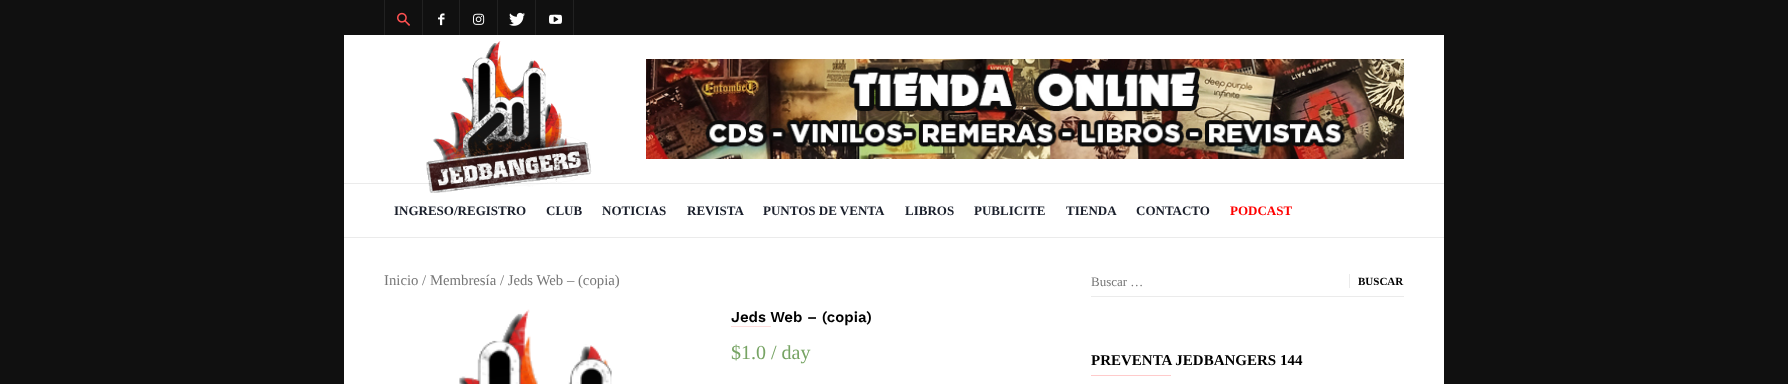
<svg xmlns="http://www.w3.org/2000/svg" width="1788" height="384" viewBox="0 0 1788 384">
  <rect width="100%" height="100%" fill="#101010"/>
  <rect x="344" y="35" width="1100" height="202" fill="#ffffff"/>
  <rect x="384" y="0" width="1" height="35" fill="#212121"/>
  <image x="397" y="12" width="13" height="14" href="img1.png"/>
  <rect x="422" y="0" width="1" height="35" fill="#212121"/>
  <image x="438" y="13" width="7" height="13" href="img2.png"/>
  <rect x="459" y="0" width="1" height="35" fill="#212121"/>
  <image x="473" y="13" width="12" height="12" href="img3.png"/>
  <rect x="497" y="0" width="1" height="35" fill="#212121"/>
  <image x="509" y="12" width="16" height="14" href="img4.png"/>
  <rect x="535" y="0" width="1" height="35" fill="#212121"/>
  <image x="549" y="14" width="13" height="10" href="img5.png"/>
  <rect x="573" y="0" width="1" height="35" fill="#212121"/>
  <image x="426" y="41" width="166" height="152" href="img6.png"/>
  <image x="646" y="59" width="758" height="100" href="img7.png"/>
  <rect x="344" y="183" width="1100" height="1" fill="#000000" fill-opacity="0.08"/>
  <text x="394" y="215" font-family="Liberation Serif" font-size="13" font-weight="bold" fill="#1a1f2b">INGRESO/REGISTRO</text>
  <text x="546" y="215" font-family="Liberation Serif" font-size="13" font-weight="bold" fill="#1a1f2b">CLUB</text>
  <text x="602" y="215" font-family="Liberation Serif" font-size="13" font-weight="bold" fill="#1a1f2b">NOTICIAS</text>
  <text x="687" y="215" font-family="Liberation Serif" font-size="13" font-weight="bold" fill="#1a1f2b">REVISTA</text>
  <text x="763" y="215" font-family="Liberation Serif" font-size="13" font-weight="bold" fill="#1a1f2b">PUNTOS DE VENTA</text>
  <text x="905" y="215" font-family="Liberation Serif" font-size="13" font-weight="bold" fill="#1a1f2b">LIBROS</text>
  <text x="974" y="215" font-family="Liberation Serif" font-size="13" font-weight="bold" fill="#1a1f2b">PUBLICITE</text>
  <text x="1066" y="215" font-family="Liberation Serif" font-size="13" font-weight="bold" fill="#1a1f2b">TIENDA</text>
  <text x="1136" y="215" font-family="Liberation Serif" font-size="13" font-weight="bold" fill="#1a1f2b">CONTACTO</text>
  <text x="1230" y="215" font-family="Liberation Serif" font-size="13" font-weight="bold" fill="#ff0000">PODCAST</text>
  <rect x="344" y="237" width="1100" height="1" fill="#ebebeb"/>
  <rect x="344" y="238" width="1100" height="146" fill="#ffffff"/>
  <text x="384" y="285" font-family="Liberation Serif" font-size="14.75" fill="#777777">Inicio / Membresía / Jeds Web – (copia)</text>
  <image x="459" y="309" width="153" height="75" href="img8.png"/>
  <text x="731" y="322" font-family="Work Sans" font-size="15" font-weight="600" fill="#000000">Jeds Web – (copia)</text>
  <rect x="731" y="326" width="40" height="1" fill="#ffdcdc"/>
  <text x="731" y="359" font-family="Liberation Serif" font-size="20" fill="#77a464">$1.0 / day</text>
  <rect x="1091" y="296" width="313" height="1" fill="#ebebeb"/>
  <text x="1091" y="286" font-family="Liberation Serif" font-size="13" fill="#777777">Buscar …</text>
  <rect x="1349" y="274" width="1" height="14" fill="#ebebeb"/>
  <text x="1358" y="285" font-family="Liberation Serif" font-size="11" font-weight="bold" fill="#000000">BUSCAR</text>
  <text x="1091" y="365" font-family="Liberation Serif" font-size="15" font-weight="bold" fill="#000000">PREVENTA JEDBANGERS 144</text>
  <rect x="1091" y="375" width="80" height="1" fill="#ffcbcb"/>
</svg>
